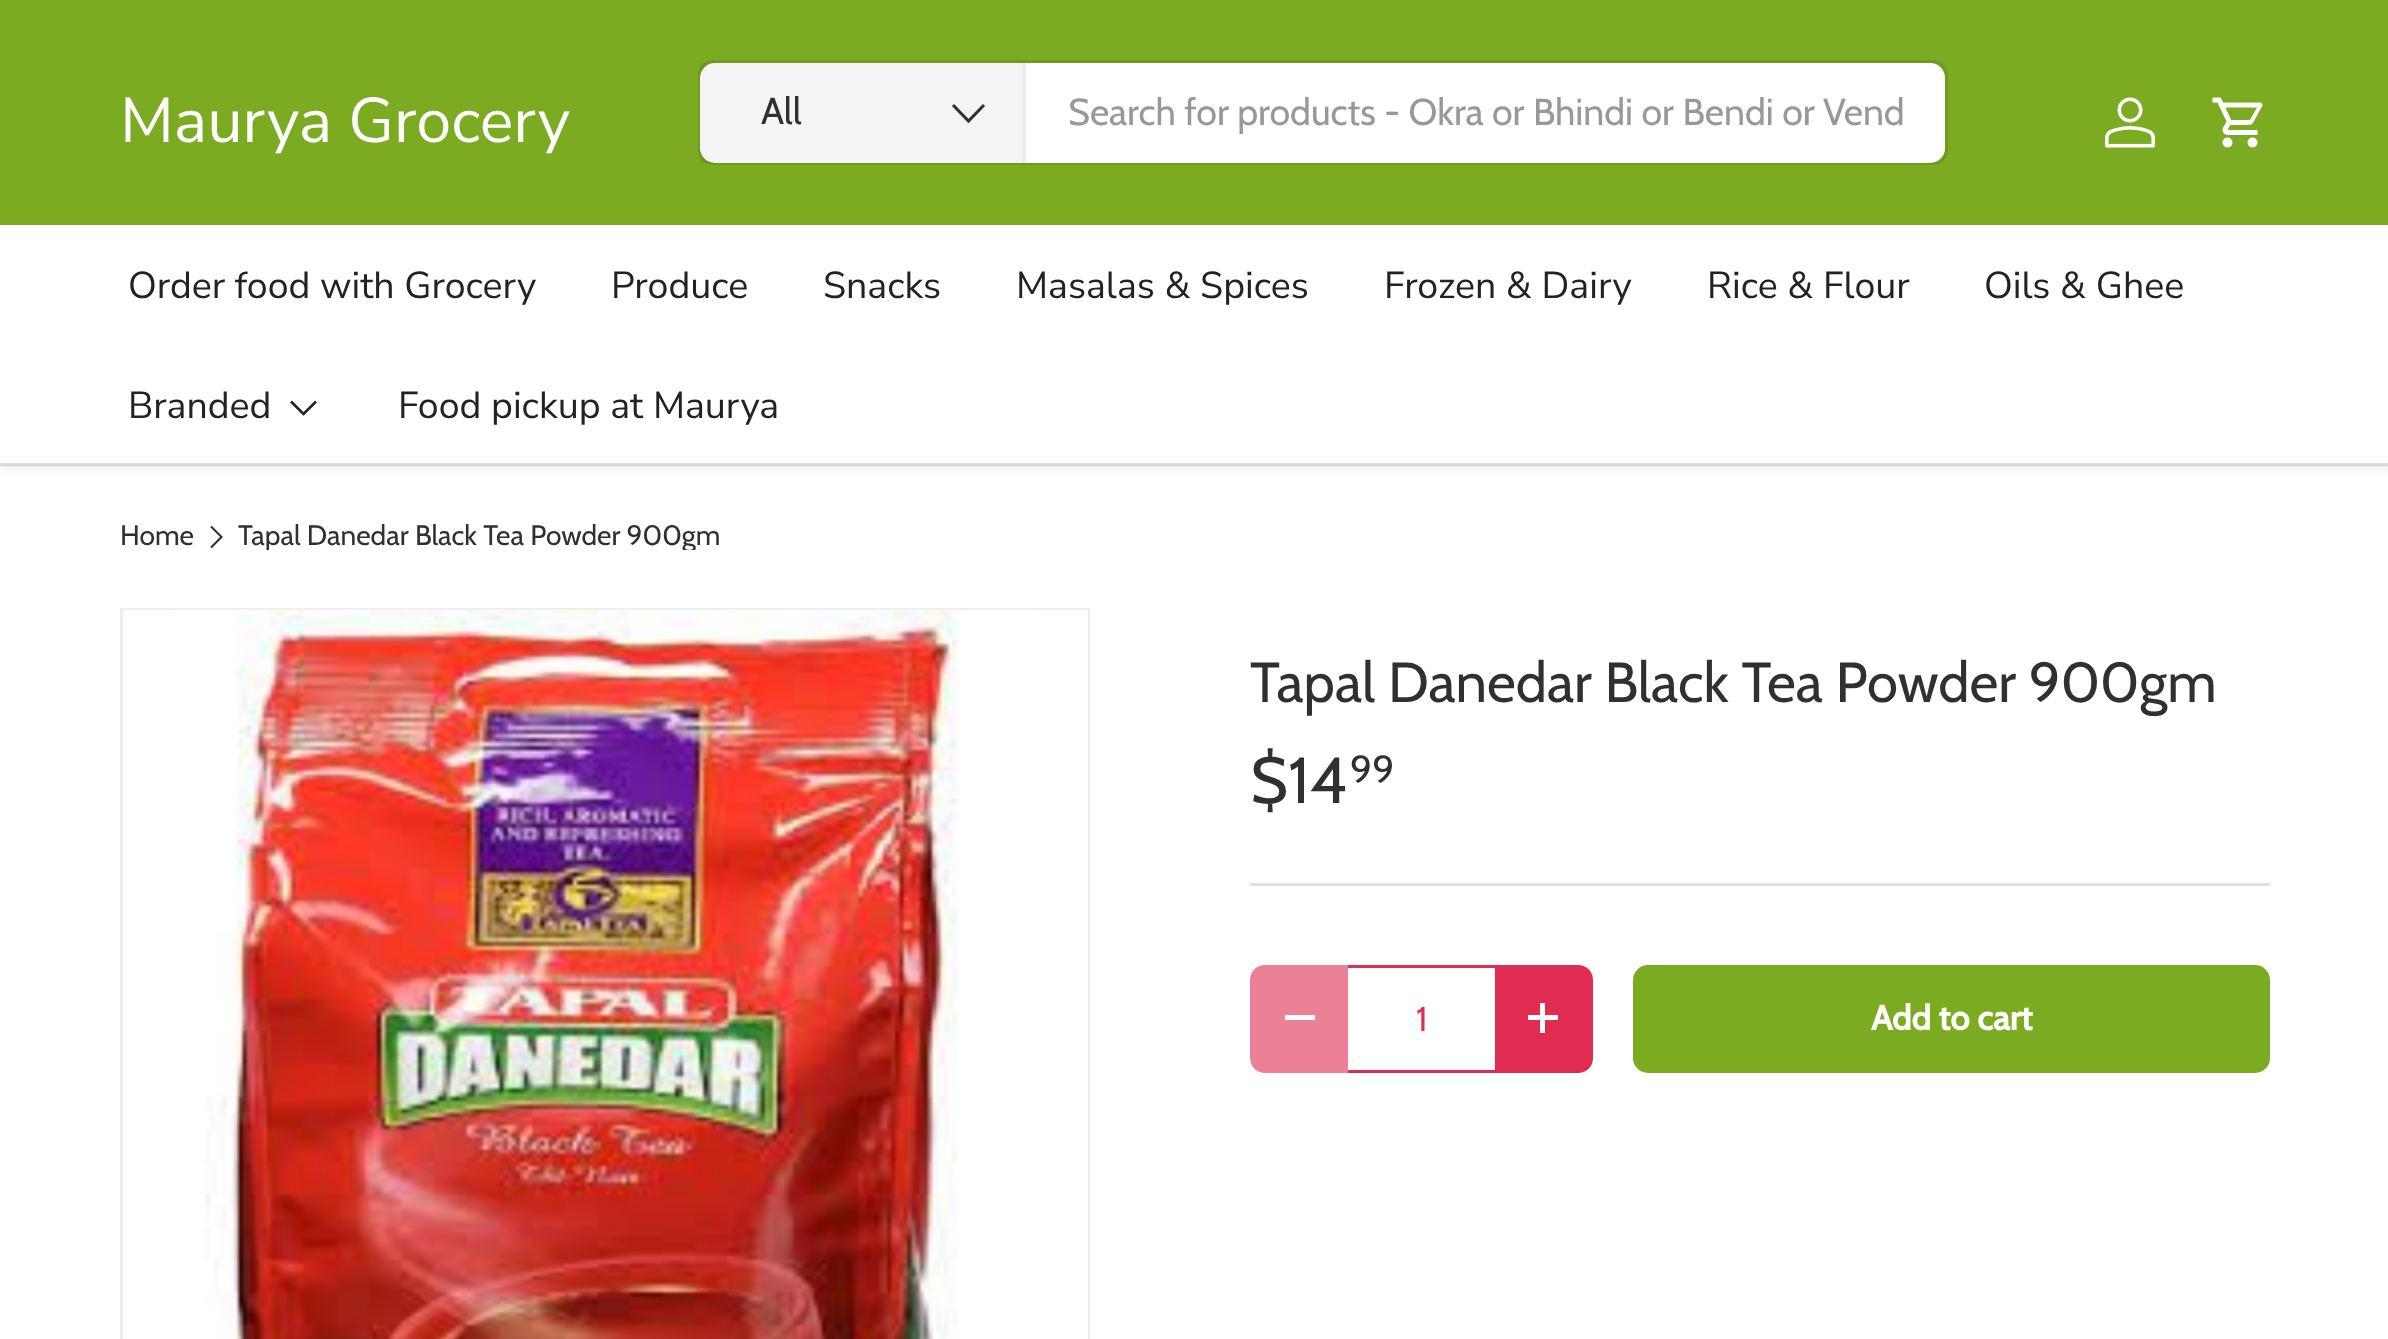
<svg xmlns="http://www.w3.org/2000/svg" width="2388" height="1339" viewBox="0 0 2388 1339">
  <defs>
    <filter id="blur1" x="-50%" y="-200%" width="200%" height="500%"><feGaussianBlur stdDeviation="4"/></filter>
    <clipPath id="clip1"><rect x="238" y="523" width="485" height="27"/></clipPath>
    <linearGradient id="g1" gradientUnits="userSpaceOnUse" x1="401" y1="791" x2="2227" y2="1246"><stop offset="0.6" stop-color="#96bf49"/><stop offset="0.6" stop-color="#7bab20"/><stop offset="1" stop-color="#7bab20"/></linearGradient>
  </defs>
  <rect width="100%" height="100%" fill="#ffffff"/>
  <rect x="-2" y="-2" width="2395" height="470" fill="#000000" fill-opacity="0.08" filter="url(#blur1)"/>
  <rect x="0" y="0" width="2388" height="225" fill="#7bab20"/>
  <text x="120" y="142" font-family="Nunito Sans" font-size="63" fill="#ffffff">Maurya Grocery</text>
  <rect x="699.5" y="61.5" width="1247" height="102" rx="13.5" fill="none" stroke="#709922" stroke-width="3"/>
  <rect x="700" y="63" width="1245" height="100" rx="15" fill="#ffffff"/>
  <rect x="700" y="63" width="325" height="100" fill="#303030" fill-opacity="0.05"/>
  <rect x="1023" y="63" width="3" height="100" fill="#303030" fill-opacity="0.05"/>
  <text x="761" y="124" font-family="Cabin" font-size="37.5" fill="#303030">All</text>
  <path d="M984 105L968.5 121L953 105" fill="none" stroke="#303030" stroke-width="3.1"/>
  <text x="1068" y="125" font-family="Cabin" font-size="37.5" fill="#989898">Search for products - Okra or Bhindi or Bendi or Vend</text>
  <image x="2105" y="97" width="50" height="51" href="img1.png"/>
  <image x="2212" y="97" width="51" height="51" href="img2.png"/>
  <rect x="0" y="225" width="2388" height="240" fill="#ffffff"/>
  <text x="128" y="298" font-family="Nunito Sans" font-size="37.5" fill="#222222">Order food with Grocery</text>
  <text x="611" y="298" font-family="Nunito Sans" font-size="37.5" fill="#222222">Produce</text>
  <text x="823" y="298" font-family="Nunito Sans" font-size="37.5" fill="#222222">Snacks</text>
  <text x="1016" y="298" font-family="Nunito Sans" font-size="37.5" fill="#222222">Masalas &amp; Spices</text>
  <text x="1384" y="298" font-family="Nunito Sans" font-size="37.5" fill="#222222">Frozen &amp; Dairy</text>
  <text x="1707" y="298" font-family="Nunito Sans" font-size="37.5" fill="#222222">Rice &amp; Flour</text>
  <text x="1984" y="298" font-family="Nunito Sans" font-size="37.5" fill="#222222">Oils &amp; Ghee</text>
  <text x="128" y="418" font-family="Nunito Sans" font-size="37.5" fill="#222222">Branded</text>
  <path d="M316 401.5L303.5 414L291 401.5" fill="none" stroke="#222222" stroke-width="2.5"/>
  <text x="398" y="418" font-family="Nunito Sans" font-size="37.5" fill="#222222">Food pickup at Maurya</text>
  <rect x="0" y="463" width="2388" height="3" fill="#222222" fill-opacity="0.15"/>
  <text x="120" y="545" font-family="Cabin" font-size="28.1" fill="#303030">Home</text>
  <path d="M211 526.5L221.5 537L211 547.5" fill="none" stroke="#303030" stroke-width="2.1"/>
  <g clip-path="url(#clip1)">
    <text x="238" y="545" font-family="Cabin" font-size="28.1" fill="#303030">Tapal Danedar Black Tea Powder 900gm</text>
  </g>
  <rect x="121.5" y="609.5" width="967" height="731" fill="none" stroke="#eeeeee" stroke-width="3"/>
  <rect x="123" y="610" width="965" height="729" fill="#ffffff"/>
  <image x="174" y="609" width="863" height="730" href="img3.png"/>
  <text x="1250" y="702" font-family="Cabin" font-size="56.3" fill="#303030">Tapal Danedar Black Tea Powder 900gm</text>
  <text x="1250" y="803" font-family="Cabin" font-size="65" fill="#303030">$14</text>
  <text x="1350" y="783" font-family="Cabin" font-size="39" fill="#303030">99</text>
  <rect x="1250" y="883" width="1020" height="3" fill="#e0e0e0"/>
  <path d="M1265 965H1348V1073H1265C1256.5 1073 1250 1066.5 1250 1058V980C1250 971.5 1256.5 965 1265 965Z" fill="#ec8096"/>
  <rect x="1285" y="1015" width="30" height="5" fill="#ffffff"/>
  <rect x="1348" y="1070" width="147" height="3" fill="#e02c50"/>
  <rect x="1348" y="965" width="147" height="3" fill="#e02c50"/>
  <text x="1416" y="1031" font-family="Cabin" font-size="34.5" fill="#e02c50">1</text>
  <path d="M1495 965H1578C1586.5 965 1593 971.5 1593 980V1058C1593 1066.5 1586.5 1073 1578 1073H1495Z" fill="#e02c50"/>
  <rect x="1528" y="1015" width="30" height="5" fill="#ffffff"/>
  <rect x="1540" y="1003" width="5" height="30" fill="#ffffff"/>
  <rect x="1633" y="965" width="637" height="108" rx="15" fill="url(#g1)"/>
  <text x="1871" y="1030" font-family="Cabin" font-size="34.5" font-weight="bold" fill="#ffffff">Add to cart</text>
</svg>
